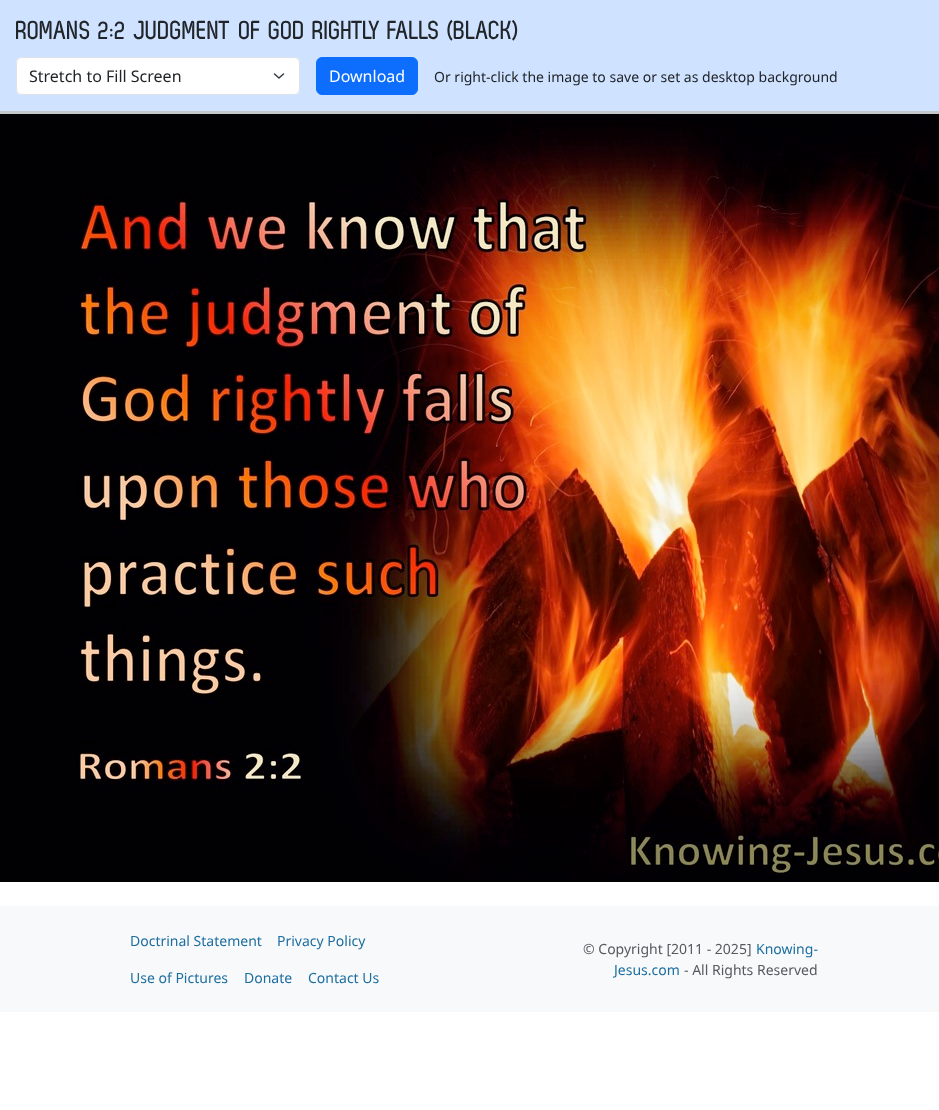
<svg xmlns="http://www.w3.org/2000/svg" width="939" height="1110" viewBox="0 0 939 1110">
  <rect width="100%" height="100%" fill="#ffffff"/>
  <rect x="0" y="0" width="939" height="111" fill="#cfe2ff"/>
  <rect x="0" y="111" width="939" height="3" fill="#c4c8cb"/>
  <text x="16" y="39" font-family="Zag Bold" font-size="26" font-weight="bold" fill="#212529">ROMANS 2:2 JUDGMENT OF GOD RIGHTLY FALLS (BLACK)</text>
  <rect x="16" y="57" width="284" height="38" rx="6" fill="#ffffff"/>
  <path d="M274.5 74L279 78L283.5 74" fill="none" stroke="#343a40" stroke-width="1.5" stroke-linecap="round" stroke-linejoin="round"/>
  <rect x="16.5" y="57.5" width="283" height="37" rx="5.5" fill="none" stroke="#dee2e6"/>
  <text x="29" y="82" font-family="Noto Sans" font-size="16" fill="#212529">Stretch to Fill Screen</text>
  <rect x="316.5" y="57.5" width="101" height="37" rx="5.5" fill="#0d6efd" stroke="#0d6efd"/>
  <text x="329" y="82" font-family="Noto Sans" font-size="16" fill="#ffffff">Download</text>
  <text x="434" y="82" font-family="Noto Sans" font-size="14" fill="#212529">Or right-click the image to save or set as desktop background</text>
  <image x="0" y="114" width="939" height="768" href="img1.png"/>
  <rect x="0" y="906" width="939" height="106" fill="#f8f9fa"/>
  <text x="130" y="946" font-family="Noto Sans" font-size="14" fill="#1c6ea0">Doctrinal Statement</text>
  <text x="277" y="946" font-family="Noto Sans" font-size="14" fill="#1c6ea0">Privacy Policy</text>
  <text x="130" y="983" font-family="Noto Sans" font-size="14" fill="#1c6ea0">Use of Pictures</text>
  <text x="244" y="983" font-family="Noto Sans" font-size="14" fill="#1c6ea0">Donate</text>
  <text x="308" y="983" font-family="Noto Sans" font-size="14" fill="#1c6ea0">Contact Us</text>
  <text x="583" y="954" font-family="Noto Sans" font-size="14" fill="#575a5d">© Copyright [2011 - 2025]</text>
  <text x="756" y="954" font-family="Noto Sans" font-size="14" fill="#1c6ea0">Knowing-</text>
  <text x="614" y="975" font-family="Noto Sans" font-size="14" fill="#1c6ea0">Jesus.com</text>
  <text x="684" y="975" font-family="Noto Sans" font-size="14" fill="#575a5d">- All Rights Reserved</text>
</svg>
